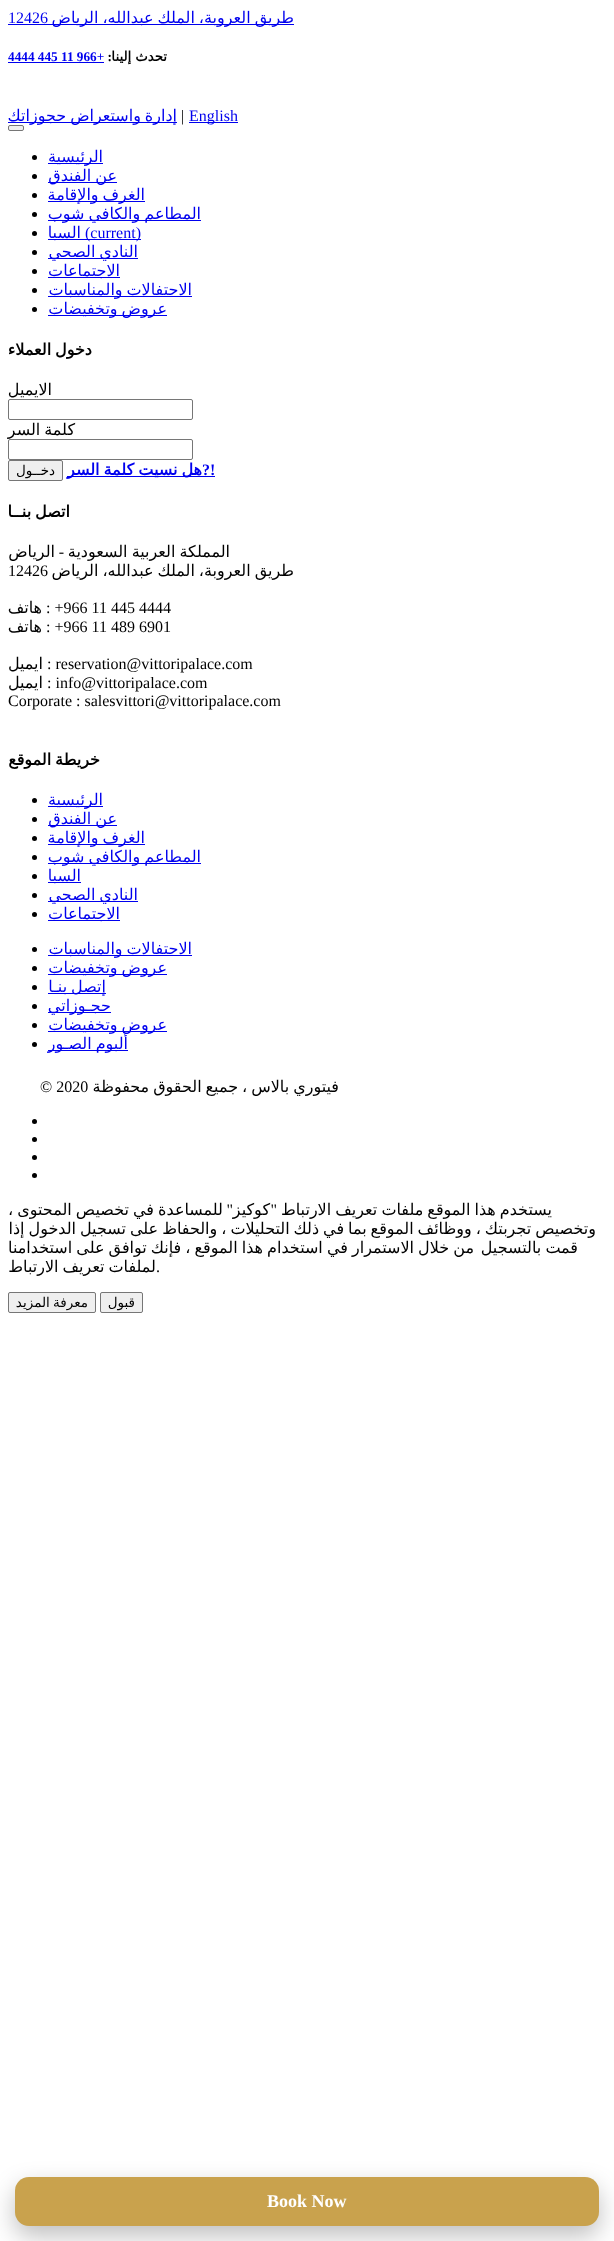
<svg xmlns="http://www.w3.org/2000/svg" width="614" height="2241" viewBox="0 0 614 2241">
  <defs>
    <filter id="blur1" x="-50%" y="-200%" width="200%" height="500%"><feGaussianBlur stdDeviation="12.5"/></filter>
  </defs>
  <rect width="100%" height="100%" fill="#ffffff"/>
  <rect x="8" y="24" width="286" height="1" fill="#0000ee"/>
  <text x="294" y="23" word-spacing="-1.1" font-family="DejaVu Sans" font-size="16" direction="rtl" fill="#0000ee">طريق العروبة، الملك عبدالله، الرياض</text>
  <text x="8" y="23" font-family="Liberation Serif" font-size="16" fill="#0000ee">12426</text>
  <text x="167" y="61" font-family="DejaVu Sans" font-size="13.25" font-weight="bold" direction="rtl" fill="#000000">تحدث إلينا</text>
  <text x="112" y="61" font-family="Liberation Serif" font-size="13.25" font-weight="bold" direction="rtl" fill="#000000">:</text>
  <text x="8" y="61" font-family="Liberation Serif" font-size="13.25" font-weight="bold" fill="#0000ee">4444 445 11 966+</text>
  <rect x="8" y="62" width="96" height="1" fill="#0000ee"/>
  <rect x="189" y="122" width="49" height="1" fill="#0000ee"/>
  <text x="189" y="121" font-family="Liberation Serif" font-size="16" fill="#0000ee">English</text>
  <text x="181" y="121" font-family="Liberation Serif" font-size="16" fill="#000000">|</text>
  <rect x="8" y="122" width="169" height="1" fill="#0000ee"/>
  <text x="177" y="121" word-spacing="-1.1" font-family="DejaVu Sans" font-size="16" direction="rtl" fill="#0000ee">إدارة واستعراض حجوزاتك</text>
  <rect x="8.5" y="125.5" width="15" height="5" rx="1.5" fill="#efefef" stroke="#767676"/>
  <rect x="48" y="163" width="55" height="1" fill="#0000ee"/>
  <text x="103" y="162" font-family="DejaVu Sans" font-size="16" direction="rtl" fill="#0000ee">الرئيسية</text>
  <circle cx="34.5" cy="157.5" r="2.5" fill="#000000"/>
  <rect x="48" y="182" width="69" height="1" fill="#0000ee"/>
  <text x="117" y="181" word-spacing="-1.1" font-family="DejaVu Sans" font-size="16" direction="rtl" fill="#0000ee">عن الفندق</text>
  <circle cx="34.5" cy="176.5" r="2.5" fill="#000000"/>
  <rect x="48" y="201" width="97" height="1" fill="#0000ee"/>
  <text x="145" y="200" word-spacing="-1.1" font-family="DejaVu Sans" font-size="16" direction="rtl" fill="#0000ee">الغرف والإقامة</text>
  <circle cx="34.5" cy="195.5" r="2.5" fill="#000000"/>
  <rect x="48" y="220" width="153" height="1" fill="#0000ee"/>
  <text x="201" y="219" word-spacing="-1.1" font-family="DejaVu Sans" font-size="16" direction="rtl" fill="#0000ee">المطاعم والكافي شوب</text>
  <circle cx="34.5" cy="214.5" r="2.5" fill="#000000"/>
  <rect x="48" y="239" width="93" height="1" fill="#0000ee"/>
  <text x="85" y="238" font-family="Liberation Serif" font-size="16" fill="#0000ee">(current)</text>
  <text x="81" y="238" font-family="DejaVu Sans" font-size="16" direction="rtl" fill="#0000ee">السبا</text>
  <circle cx="34.5" cy="233.5" r="2.5" fill="#000000"/>
  <rect x="48" y="258" width="90" height="1" fill="#0000ee"/>
  <text x="138" y="257" word-spacing="-1.1" font-family="DejaVu Sans" font-size="16" direction="rtl" fill="#0000ee">النادي الصحي</text>
  <circle cx="34.5" cy="252.5" r="2.5" fill="#000000"/>
  <rect x="48" y="277" width="72" height="1" fill="#0000ee"/>
  <text x="120" y="276" font-family="DejaVu Sans" font-size="16" direction="rtl" fill="#0000ee">الاجتماعات</text>
  <circle cx="34.5" cy="271.5" r="2.5" fill="#000000"/>
  <rect x="48" y="296" width="144" height="1" fill="#0000ee"/>
  <text x="192" y="295" word-spacing="-1.1" font-family="DejaVu Sans" font-size="16" direction="rtl" fill="#0000ee">الاحتفالات والمناسبات</text>
  <circle cx="34.5" cy="290.5" r="2.5" fill="#000000"/>
  <rect x="48" y="315" width="119" height="1" fill="#0000ee"/>
  <text x="167" y="314" word-spacing="-1.1" font-family="DejaVu Sans" font-size="16" direction="rtl" fill="#0000ee">عروض وتخفيضات</text>
  <circle cx="34.5" cy="309.5" r="2.5" fill="#000000"/>
  <text x="92" y="355" word-spacing="-1.1" font-family="DejaVu Sans" font-size="16" font-weight="bold" direction="rtl" fill="#000000">دخول العملاء</text>
  <text x="52" y="395" font-family="DejaVu Sans" font-size="16" direction="rtl" fill="#000000">الايميل</text>
  <rect x="8.5" y="399.5" width="184" height="20" rx="1.5" fill="none" stroke="#767676"/>
  <text x="75" y="435" word-spacing="-1.1" font-family="DejaVu Sans" font-size="16" direction="rtl" fill="#000000">كلمة السر</text>
  <rect x="8.5" y="439.5" width="184" height="20" rx="1.5" fill="none" stroke="#767676"/>
  <rect x="67" y="476" width="135" height="1" fill="#0000ee"/>
  <text x="202" y="475" word-spacing="-1.1" font-family="DejaVu Sans" font-size="16" font-weight="bold" direction="rtl" fill="#0000ee">هل نسيت كلمة السر</text>
  <text x="202" y="475" font-family="Liberation Serif" font-size="16" font-weight="bold" fill="#0000ee">?!</text>
  <rect x="202" y="476" width="13" height="1" fill="#0000ee"/>
  <rect x="8.5" y="460.5" width="54" height="20" rx="1.5" fill="#efefef" stroke="#767676"/>
  <text x="55" y="475" font-family="DejaVu Sans" font-size="13.5" direction="rtl" fill="#000000">دخــول</text>
  <text x="70" y="517" word-spacing="-1.1" font-family="DejaVu Sans" font-size="16" font-weight="bold" direction="rtl" fill="#000000">اتصل بنــا</text>
  <text x="230" y="557" word-spacing="-1" font-family="DejaVu Sans" font-size="16" direction="rtl" fill="#000000">المملكة العربية السعودية</text>
  <text x="64" y="557" font-family="Liberation Serif" font-size="16" direction="rtl" fill="#000000">-</text>
  <text x="55" y="557" font-family="DejaVu Sans" font-size="16" direction="rtl" fill="#000000">الرياض</text>
  <text x="294" y="576" word-spacing="-1.1" font-family="DejaVu Sans" font-size="16" direction="rtl" fill="#000000">طريق العروبة، الملك عبدالله، الرياض</text>
  <text x="8" y="576" font-family="Liberation Serif" font-size="16" fill="#000000">12426</text>
  <text x="46" y="613" font-family="Liberation Serif" font-size="16" fill="#000000">: +966 11 445 4444</text>
  <text x="42" y="613" font-family="DejaVu Sans" font-size="16" direction="rtl" fill="#000000">هاتف</text>
  <text x="46" y="632" font-family="Liberation Serif" font-size="16" fill="#000000">: +966 11 489 6901</text>
  <text x="42" y="632" font-family="DejaVu Sans" font-size="16" direction="rtl" fill="#000000">هاتف</text>
  <text x="47" y="669" font-family="Liberation Serif" font-size="16" fill="#000000">: reservation@vittoripalace.com</text>
  <text x="43" y="669" font-family="DejaVu Sans" font-size="16" direction="rtl" fill="#000000">ايميل</text>
  <text x="47" y="688" font-family="Liberation Serif" font-size="16" fill="#000000">: info@vittoripalace.com</text>
  <text x="43" y="688" font-family="DejaVu Sans" font-size="16" direction="rtl" fill="#000000">ايميل</text>
  <text x="8" y="706" font-family="Liberation Serif" font-size="16" fill="#000000">Corporate : salesvittori@vittoripalace.com</text>
  <text x="100" y="765" word-spacing="-1.1" font-family="DejaVu Sans" font-size="16" font-weight="bold" direction="rtl" fill="#000000">خريطة الموقع</text>
  <rect x="48" y="806" width="55" height="1" fill="#0000ee"/>
  <text x="103" y="805" font-family="DejaVu Sans" font-size="16" direction="rtl" fill="#0000ee">الرئيسية</text>
  <circle cx="34.5" cy="800.5" r="2.5" fill="#000000"/>
  <rect x="48" y="825" width="69" height="1" fill="#0000ee"/>
  <text x="117" y="824" word-spacing="-1.1" font-family="DejaVu Sans" font-size="16" direction="rtl" fill="#0000ee">عن الفندق</text>
  <circle cx="34.5" cy="819.5" r="2.5" fill="#000000"/>
  <rect x="48" y="844" width="97" height="1" fill="#0000ee"/>
  <text x="145" y="843" word-spacing="-1.1" font-family="DejaVu Sans" font-size="16" direction="rtl" fill="#0000ee">الغرف والإقامة</text>
  <circle cx="34.5" cy="838.5" r="2.5" fill="#000000"/>
  <rect x="48" y="863" width="153" height="1" fill="#0000ee"/>
  <text x="201" y="862" word-spacing="-1.1" font-family="DejaVu Sans" font-size="16" direction="rtl" fill="#0000ee">المطاعم والكافي شوب</text>
  <circle cx="34.5" cy="857.5" r="2.5" fill="#000000"/>
  <rect x="48" y="882" width="33" height="1" fill="#0000ee"/>
  <text x="81" y="881" font-family="DejaVu Sans" font-size="16" direction="rtl" fill="#0000ee">السبا</text>
  <circle cx="34.5" cy="876.5" r="2.5" fill="#000000"/>
  <rect x="48" y="901" width="90" height="1" fill="#0000ee"/>
  <text x="138" y="900" word-spacing="-1.1" font-family="DejaVu Sans" font-size="16" direction="rtl" fill="#0000ee">النادي الصحي</text>
  <circle cx="34.5" cy="895.5" r="2.5" fill="#000000"/>
  <rect x="48" y="920" width="72" height="1" fill="#0000ee"/>
  <text x="120" y="919" font-family="DejaVu Sans" font-size="16" direction="rtl" fill="#0000ee">الاجتماعات</text>
  <circle cx="34.5" cy="914.5" r="2.5" fill="#000000"/>
  <rect x="48" y="955" width="144" height="1" fill="#0000ee"/>
  <text x="192" y="954" word-spacing="-1.1" font-family="DejaVu Sans" font-size="16" direction="rtl" fill="#0000ee">الاحتفالات والمناسبات</text>
  <circle cx="34.5" cy="949.5" r="2.5" fill="#000000"/>
  <rect x="48" y="974" width="119" height="1" fill="#0000ee"/>
  <text x="167" y="973" word-spacing="-1.1" font-family="DejaVu Sans" font-size="16" direction="rtl" fill="#0000ee">عروض وتخفيضات</text>
  <circle cx="34.5" cy="968.5" r="2.5" fill="#000000"/>
  <rect x="48" y="993" width="58" height="1" fill="#0000ee"/>
  <text x="106" y="992" word-spacing="-1.1" font-family="DejaVu Sans" font-size="16" direction="rtl" fill="#0000ee">إتصل بنـا</text>
  <circle cx="34.5" cy="987.5" r="2.5" fill="#000000"/>
  <rect x="48" y="1012" width="63" height="1" fill="#0000ee"/>
  <text x="111" y="1011" font-family="DejaVu Sans" font-size="16" direction="rtl" fill="#0000ee">حجـوزاتي</text>
  <circle cx="34.5" cy="1006.5" r="2.5" fill="#000000"/>
  <rect x="48" y="1031" width="119" height="1" fill="#0000ee"/>
  <text x="167" y="1030" word-spacing="-1.1" font-family="DejaVu Sans" font-size="16" direction="rtl" fill="#0000ee">عروض وتخفيضات</text>
  <circle cx="34.5" cy="1025.5" r="2.5" fill="#000000"/>
  <rect x="48" y="1050" width="80" height="1" fill="#0000ee"/>
  <text x="128" y="1049" word-spacing="-1.1" font-family="DejaVu Sans" font-size="16" direction="rtl" fill="#0000ee">ألبوم الصـور</text>
  <circle cx="34.5" cy="1044.5" r="2.5" fill="#000000"/>
  <text x="339" y="1092" word-spacing="-1.1" font-family="DejaVu Sans" font-size="16" direction="rtl" fill="#000000">فيتوري بالاس ، جميع الحقوق محفوظة</text>
  <text x="40" y="1092" font-family="Liberation Serif" font-size="16" fill="#000000">© 2020</text>
  <circle cx="34.5" cy="1121.5" r="2.5" fill="#000000"/>
  <circle cx="34.5" cy="1139.5" r="2.5" fill="#000000"/>
  <circle cx="34.5" cy="1157.5" r="2.5" fill="#000000"/>
  <circle cx="34.5" cy="1175.5" r="2.5" fill="#000000"/>
  <text x="552" y="1215" word-spacing="-1" font-family="DejaVu Sans" font-size="16" direction="rtl" fill="#000000">يستخدم هذا الموقع ملفات تعريف الارتباط</text>
  <text x="277" y="1215" font-family="Liberation Serif" font-size="16" direction="rtl" fill="#000000">"</text>
  <text x="233" y="1215" font-family="Liberation Serif" font-size="16" direction="rtl" fill="#000000">"</text>
  <text x="270" y="1215" font-family="DejaVu Sans" font-size="16" direction="rtl" fill="#000000">كوكيز</text>
  <text x="223" y="1215" word-spacing="-1" font-family="DejaVu Sans" font-size="16" direction="rtl" fill="#000000">للمساعدة في تخصيص المحتوى ،</text>
  <text x="596" y="1234" word-spacing="-1.1" font-family="DejaVu Sans" font-size="16" direction="rtl" fill="#000000">وتخصيص تجربتك ، ووظائف الموقع بما في ذلك التحليلات ، والحفاظ على تسجيل الدخول إذا</text>
  <text x="578" y="1253" word-spacing="-1" font-family="DejaVu Sans" font-size="16" direction="rtl" fill="#000000">قمت بالتسجيل</text>
  <text x="474" y="1253" word-spacing="-1" font-family="DejaVu Sans" font-size="16" direction="rtl" fill="#000000">من خلال الاستمرار في استخدام هذا الموقع ، فإنك توافق على استخدامنا</text>
  <text x="156" y="1272" word-spacing="-1.1" font-family="DejaVu Sans" font-size="16" direction="rtl" fill="#000000">لملفات تعريف الارتباط</text>
  <text x="156" y="1272" font-family="Liberation Serif" font-size="16" fill="#000000">.</text>
  <rect x="100.5" y="1292.5" width="42" height="20" rx="1.5" fill="#efefef" stroke="#767676"/>
  <text x="135" y="1307" font-family="DejaVu Sans" font-size="13.5" direction="rtl" fill="#000000">قبول</text>
  <rect x="8.5" y="1292.5" width="87" height="20" rx="1.5" fill="#efefef" stroke="#767676"/>
  <text x="88" y="1307" word-spacing="-1" font-family="DejaVu Sans" font-size="13.5" direction="rtl" fill="#000000">معرفة المزيد</text>
  <rect x="15" y="2187" width="584" height="49" rx="14" fill="#000000" fill-opacity="0.25" filter="url(#blur1)"/>
  <rect x="15" y="2177" width="584" height="49" rx="14" fill="#c9a24d"/>
  <text x="267" y="2207" font-family="Liberation Serif" font-size="18" font-weight="bold" fill="#ffffff">Book Now</text>
</svg>
